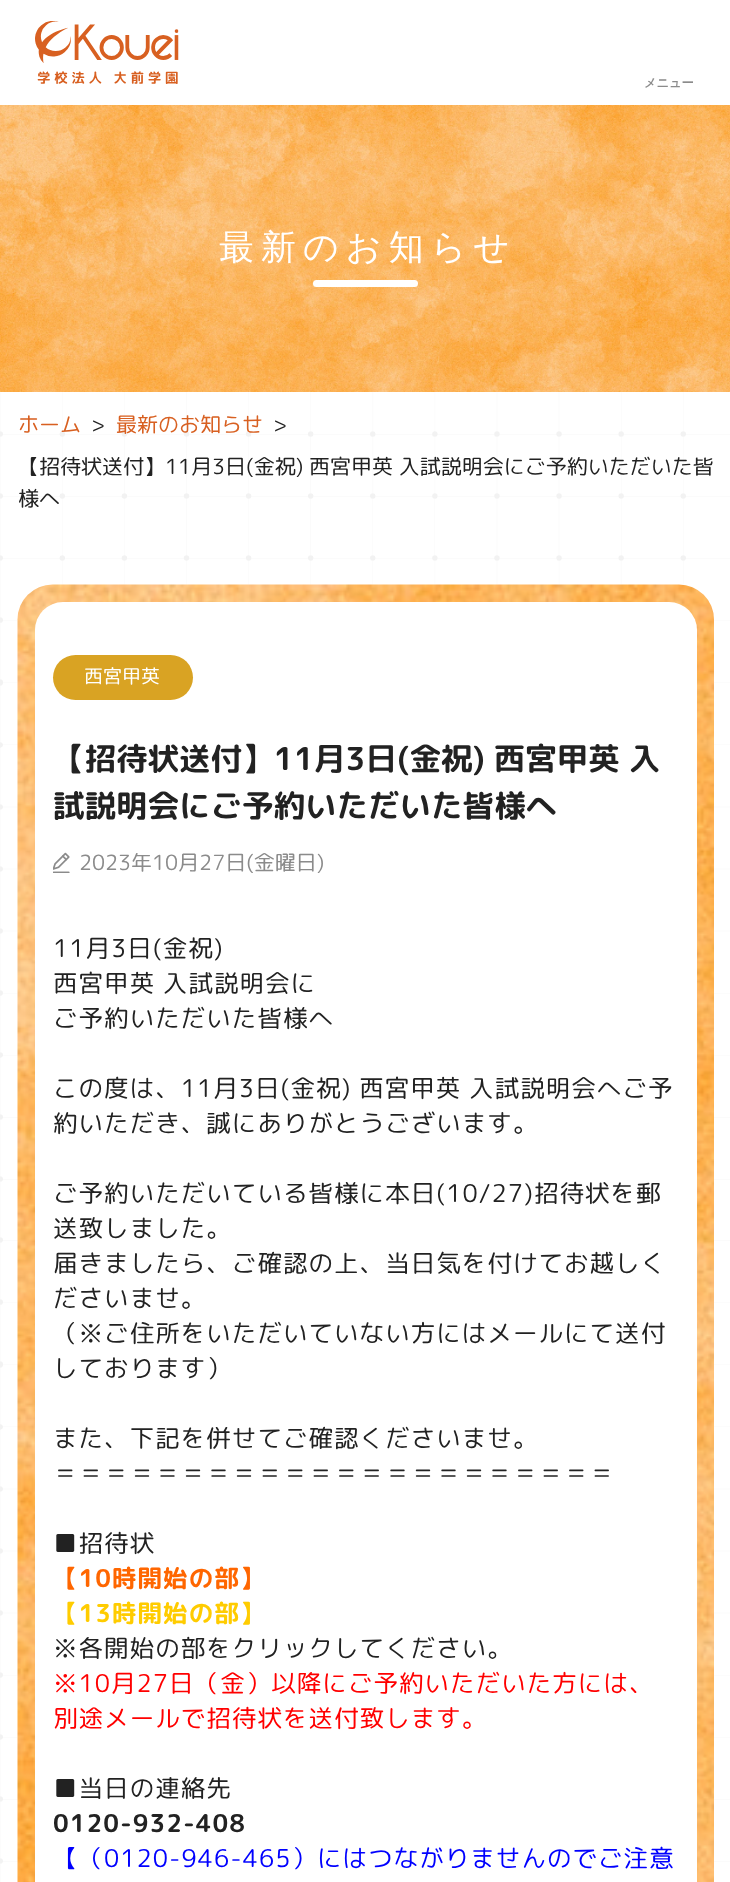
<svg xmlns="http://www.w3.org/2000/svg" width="730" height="1882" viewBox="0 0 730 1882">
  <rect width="100%" height="100%" fill="#ffffff"/>
  <image x="0" y="392" width="730" height="1490" href="img1.png"/>
  <image x="35" y="21" width="144" height="63" href="img2.png"/>
  <text x="644" y="87" font-family="WenQuanYi Zen Hei" font-size="12.25" font-weight="bold" fill="#8b8b8b">メニュー</text>
  <image x="0" y="105" width="730" height="287" href="img3.png"/>
  <text x="219" y="259" font-family="Noto Sans" font-size="35" letter-spacing="7" fill="#ffffff">最新のお知らせ</text>
  <rect x="313" y="280" width="105" height="7" rx="3.5" fill="#ffffff"/>
  <text x="18" y="432" font-family="'Rounded Mplus 1c'" font-size="21" fill="#d86021">ホーム</text>
  <text x="91" y="432" font-family="'Rounded Mplus 1c'" font-size="21" fill="#222222">&gt;</text>
  <text x="116" y="432" font-family="'Rounded Mplus 1c'" font-size="21" fill="#d86021">最新のお知らせ</text>
  <text x="273" y="432" font-family="'Rounded Mplus 1c'" font-size="21" fill="#222222">&gt;</text>
  <text x="18" y="474" font-family="'Rounded Mplus 1c'" font-size="21" fill="#222222">【招待状送付】11月3日(金祝) 西宮甲英 入試説明会にご予約いただいた皆</text>
  <text x="18" y="506" font-family="'Rounded Mplus 1c'" font-size="21" fill="#222222">様へ</text>
  <image x="17" y="584" width="697" height="1298" href="img4.png"/>
  <rect x="35" y="602" width="662" height="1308" rx="28" fill="#ffffff"/>
  <rect x="53" y="655" width="140" height="45" rx="22.5" fill="#d9a323"/>
  <text x="84" y="683" font-family="'Rounded Mplus 1c'" font-size="19" fill="#ffffff">西宮甲英</text>
  <text x="53" y="770" font-family="'Rounded Mplus 1c Bold'" font-size="31.5" font-weight="bold" fill="#222222">【招待状送付】11月3日(金祝) 西宮甲英 入</text>
  <text x="53" y="817" font-family="'Rounded Mplus 1c Bold'" font-size="31.5" font-weight="bold" fill="#222222">試説明会にご予約いただいた皆様へ</text>
  <image x="53" y="852" width="17" height="21" href="img5.png"/>
  <text x="79" y="870" font-family="'Rounded Mplus 1c'" font-size="21" fill="#8b8b8b">2023年10月27日(金曜日)</text>
  <text x="53" y="957" font-family="'Rounded Mplus 1c'" font-size="24.5" letter-spacing="1.05" fill="#222222">11月3日(金祝)</text>
  <text x="53" y="992" font-family="'Rounded Mplus 1c'" font-size="24.5" letter-spacing="1.05" fill="#222222">西宮甲英 入試説明会に</text>
  <text x="53" y="1027" font-family="'Rounded Mplus 1c'" font-size="24.5" letter-spacing="1.05" fill="#222222">ご予約いただいた皆様へ</text>
  <text x="53" y="1097" font-family="'Rounded Mplus 1c'" font-size="24.5" letter-spacing="1.05" fill="#222222">この度は、11月3日(金祝) 西宮甲英 入試説明会へご予</text>
  <text x="53" y="1132" font-family="'Rounded Mplus 1c'" font-size="24.5" letter-spacing="1.05" fill="#222222">約いただき、誠にありがとうございます。</text>
  <text x="53" y="1202" font-family="'Rounded Mplus 1c'" font-size="24.5" letter-spacing="1.05" fill="#222222">ご予約いただいている皆様に本日(10/27)招待状を郵</text>
  <text x="53" y="1237" font-family="'Rounded Mplus 1c'" font-size="24.5" letter-spacing="1.05" fill="#222222">送致しました。</text>
  <text x="53" y="1272" font-family="'Rounded Mplus 1c'" font-size="24.5" letter-spacing="1.05" fill="#222222">届きましたら、ご確認の上、当日気を付けてお越しく</text>
  <text x="53" y="1307" font-family="'Rounded Mplus 1c'" font-size="24.5" letter-spacing="1.05" fill="#222222">ださいませ。</text>
  <text x="53" y="1342" font-family="'Rounded Mplus 1c'" font-size="24.5" letter-spacing="1.05" fill="#222222">（※ご住所をいただいていない方にはメールにて送付</text>
  <text x="53" y="1377" font-family="'Rounded Mplus 1c'" font-size="24.5" letter-spacing="1.05" fill="#222222">しております）</text>
  <text x="53" y="1447" font-family="'Rounded Mplus 1c'" font-size="24.5" letter-spacing="1.05" fill="#222222">また、下記を併せてご確認くださいませ。</text>
  <text x="53" y="1482" font-family="'Rounded Mplus 1c'" font-size="24.5" letter-spacing="1.05" fill="#222222">＝＝＝＝＝＝＝＝＝＝＝＝＝＝＝＝＝＝＝＝＝＝</text>
  <text x="53" y="1552" font-family="'Rounded Mplus 1c'" font-size="24.5" letter-spacing="1.05" fill="#222222">■招待状</text>
  <text x="53" y="1587" font-family="'Rounded Mplus 1c Bold'" font-size="24.5" font-weight="bold" letter-spacing="1.05" fill="#ff6600">【10時開始の部】</text>
  <text x="53" y="1622" font-family="'Rounded Mplus 1c Bold'" font-size="24.5" font-weight="bold" letter-spacing="1.05" fill="#ffcc00">【13時開始の部】</text>
  <text x="53" y="1657" font-family="'Rounded Mplus 1c'" font-size="24.5" letter-spacing="1.05" fill="#222222">※各開始の部をクリックしてください。</text>
  <text x="53" y="1692" font-family="'Rounded Mplus 1c'" font-size="24.5" letter-spacing="1.05" fill="#ff0000">※10月27日（金）以降にご予約いただいた方には、</text>
  <text x="53" y="1727" font-family="'Rounded Mplus 1c'" font-size="24.5" letter-spacing="1.05" fill="#ff0000">別途メールで招待状を送付致します。</text>
  <text x="53" y="1797" font-family="'Rounded Mplus 1c'" font-size="24.5" letter-spacing="1.05" fill="#222222">■当日の連絡先</text>
  <text x="53" y="1832" font-family="'Rounded Mplus 1c Bold'" font-size="24.5" font-weight="bold" letter-spacing="1.05" fill="#222222">0120-932-408</text>
  <text x="53" y="1867" font-family="'Rounded Mplus 1c'" font-size="24.5" letter-spacing="1.05" fill="#0000ff">【（0120-946-465）にはつながりませんのでご注意</text>
</svg>
